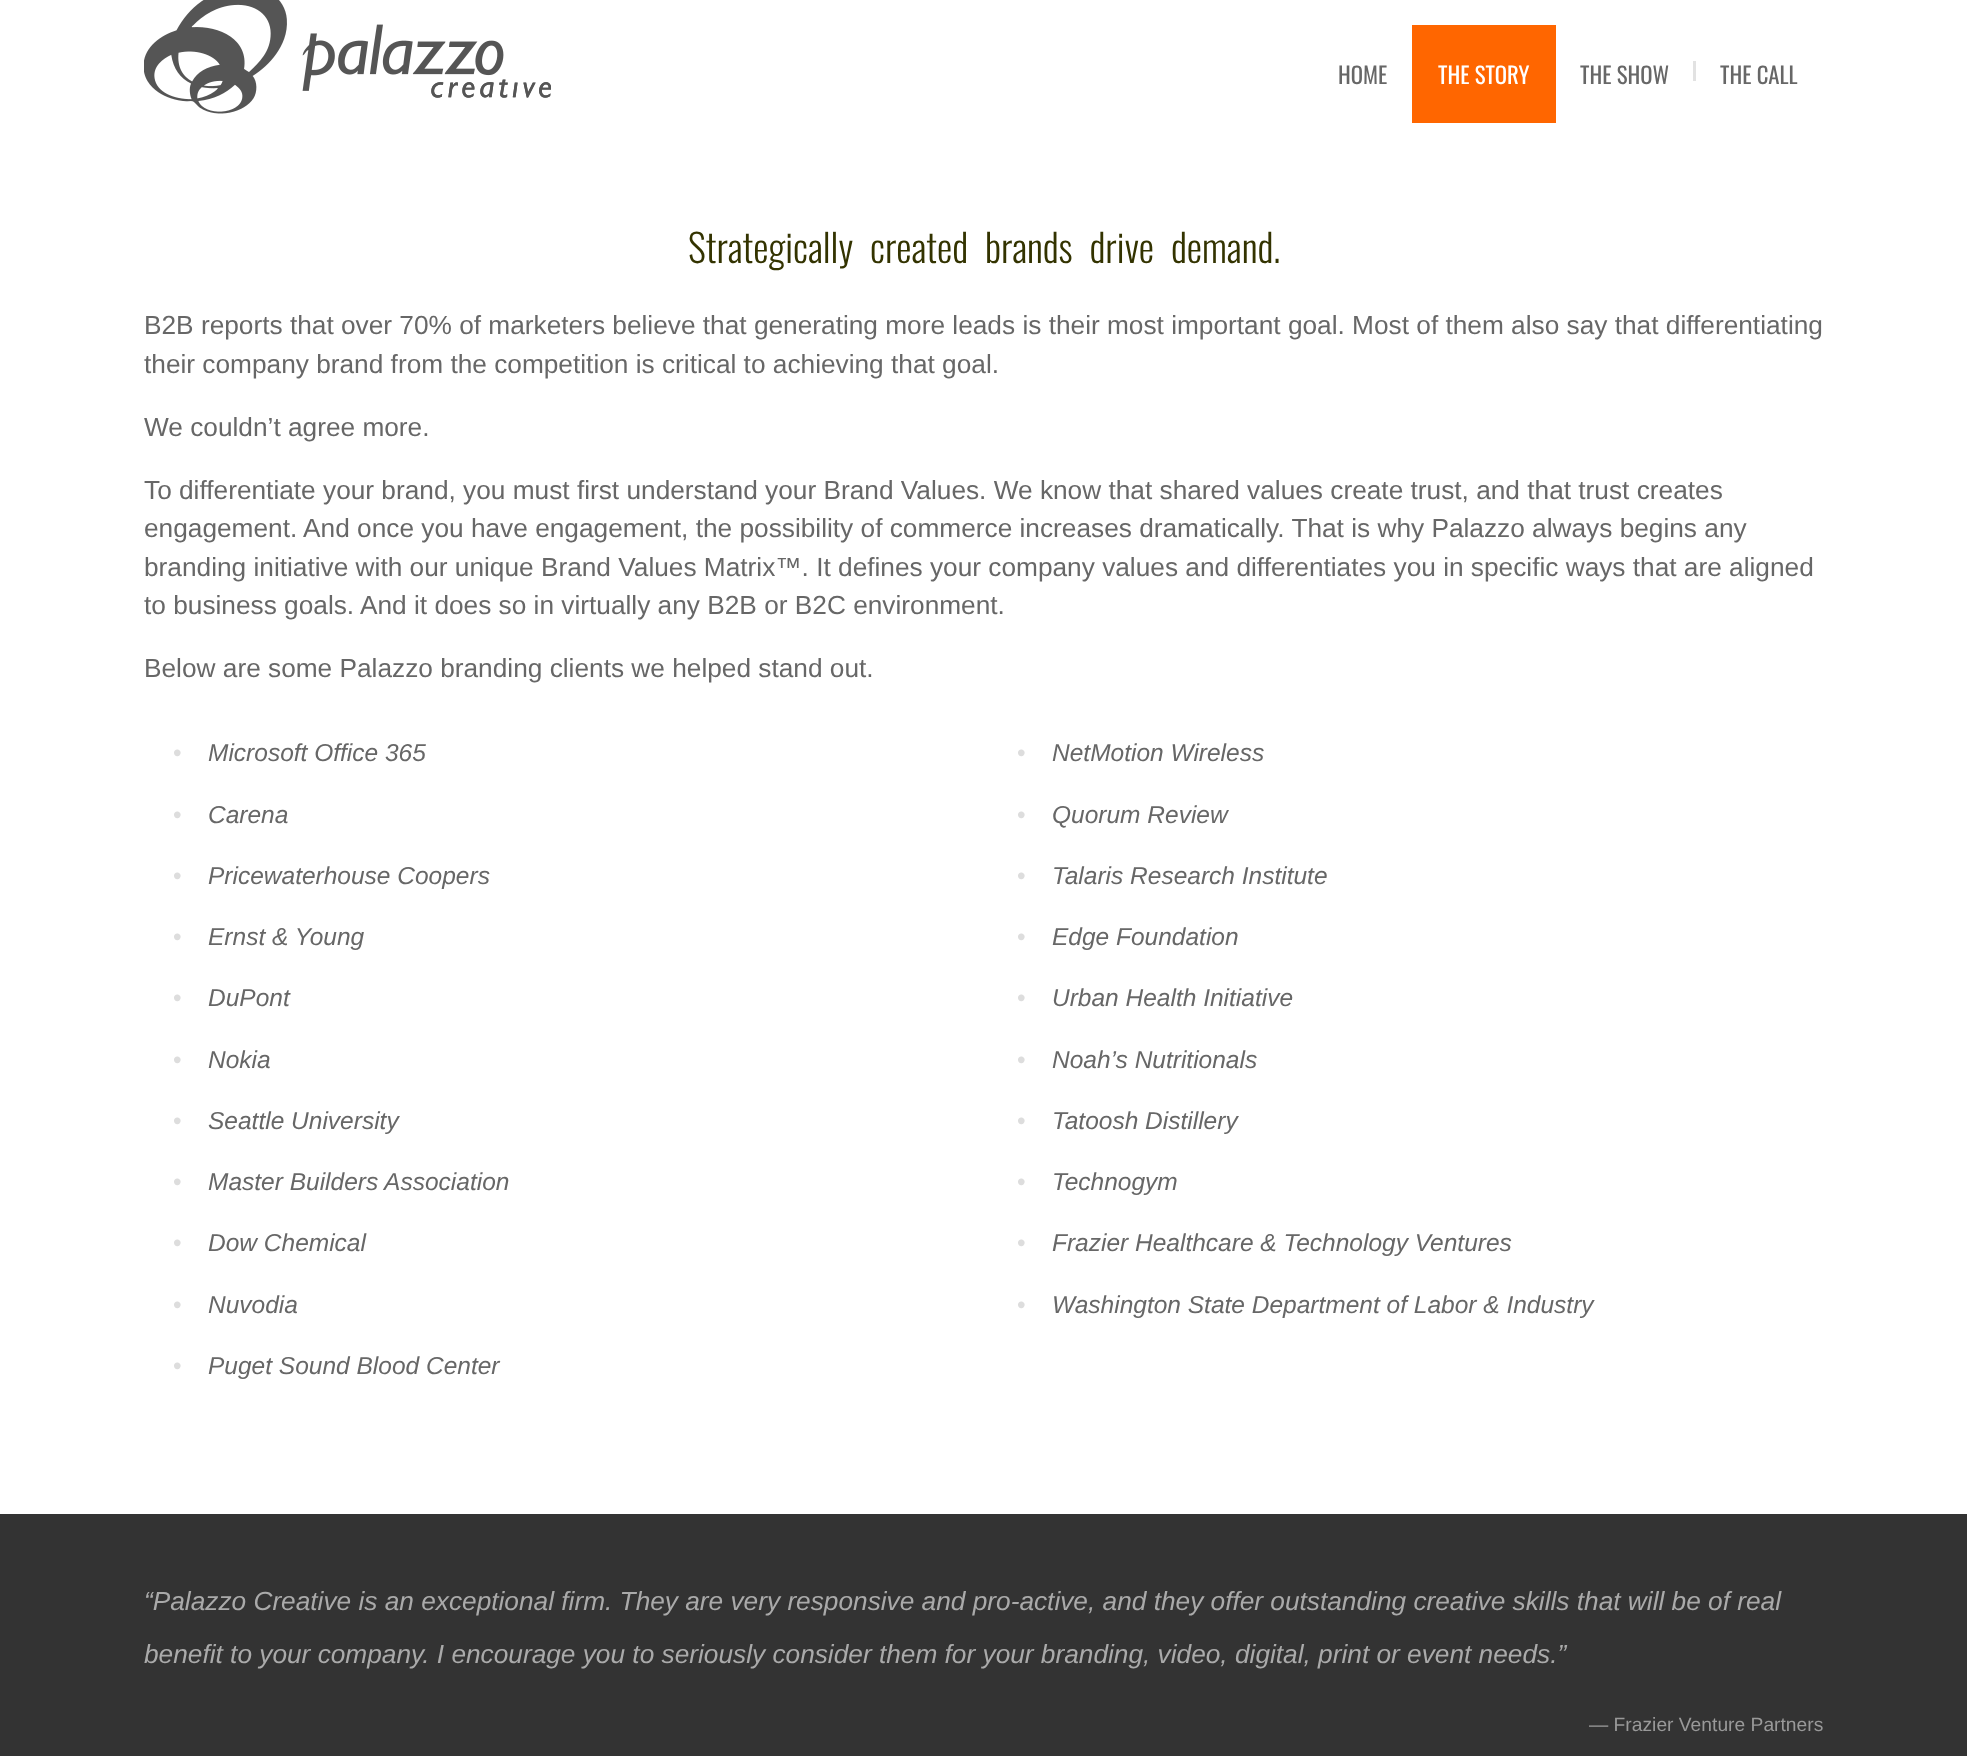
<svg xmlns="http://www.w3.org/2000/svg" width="1967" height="1756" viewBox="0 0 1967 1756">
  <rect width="100%" height="100%" fill="#ffffff"/>
  <image x="144" y="0" width="407" height="114" href="img1.png"/>
  <text x="1338" y="84" font-family="Oswald" font-size="22.75" fill="#676767">HOME</text>
  <rect x="1412" y="25" width="144" height="98" fill="#ff6600"/>
  <text x="1438" y="84" font-family="Oswald" font-size="22.75" fill="#ffffff">THE STORY</text>
  <rect x="1693" y="61" width="3" height="20" fill="#e2e2e2"/>
  <text x="1580" y="84" font-family="Oswald" font-size="22.75" fill="#676767">THE SHOW</text>
  <text x="1720" y="84" font-family="Oswald" font-size="22.75" fill="#676767">THE CALL</text>
  <text x="688" y="263" word-spacing="9" font-family="Oswald" font-size="38.5" font-weight="300" fill="#333300">Strategically created brands drive demand.</text>
  <text x="144" y="334" font-family="Liberation Sans" font-size="26.25" fill="#676767">B2B reports that over 70% of marketers believe that generating more leads is their most important goal. Most of them also say that differentiating</text>
  <text x="144" y="373" font-family="Liberation Sans" font-size="26.25" fill="#676767">their company brand from the competition is critical to achieving that goal.</text>
  <text x="144" y="436" font-family="Liberation Sans" font-size="26.25" fill="#676767">We couldn’t agree more.</text>
  <text x="144" y="499" font-family="Liberation Sans" font-size="26.25" fill="#676767">To differentiate your brand, you must first understand your Brand Values. We know that shared values create trust, and that trust creates</text>
  <text x="144" y="537" font-family="Liberation Sans" font-size="26.25" fill="#676767">engagement. And once you have engagement, the possibility of commerce increases dramatically. That is why Palazzo always begins any</text>
  <text x="144" y="576" font-family="Liberation Sans" font-size="26.25" fill="#676767">branding initiative with our unique Brand Values Matrix™. It defines your company values and differentiates you in specific ways that are aligned</text>
  <text x="144" y="614" font-family="Liberation Sans" font-size="26.25" fill="#676767">to business goals. And it does so in virtually any B2B or B2C environment.</text>
  <text x="144" y="677" font-family="Liberation Sans" font-size="26.25" fill="#676767">Below are some Palazzo branding clients we helped stand out.</text>
  <text x="173" y="761" font-family="Liberation Sans" font-size="24.5" fill="#dddddd">•</text>
  <text x="208" y="761" font-family="Liberation Sans" font-size="24.5" font-style="italic" fill="#676767">Microsoft Office 365</text>
  <text x="173" y="823" font-family="Liberation Sans" font-size="24.5" fill="#dddddd">•</text>
  <text x="208" y="823" font-family="Liberation Sans" font-size="24.5" font-style="italic" fill="#676767">Carena</text>
  <text x="173" y="884" font-family="Liberation Sans" font-size="24.5" fill="#dddddd">•</text>
  <text x="208" y="884" font-family="Liberation Sans" font-size="24.5" font-style="italic" fill="#676767">Pricewaterhouse Coopers</text>
  <text x="173" y="945" font-family="Liberation Sans" font-size="24.5" fill="#dddddd">•</text>
  <text x="208" y="945" font-family="Liberation Sans" font-size="24.5" font-style="italic" fill="#676767">Ernst &amp; Young</text>
  <text x="173" y="1006" font-family="Liberation Sans" font-size="24.5" fill="#dddddd">•</text>
  <text x="208" y="1006" font-family="Liberation Sans" font-size="24.5" font-style="italic" fill="#676767">DuPont</text>
  <text x="173" y="1068" font-family="Liberation Sans" font-size="24.5" fill="#dddddd">•</text>
  <text x="208" y="1068" font-family="Liberation Sans" font-size="24.5" font-style="italic" fill="#676767">Nokia</text>
  <text x="173" y="1129" font-family="Liberation Sans" font-size="24.5" fill="#dddddd">•</text>
  <text x="208" y="1129" font-family="Liberation Sans" font-size="24.5" font-style="italic" fill="#676767">Seattle University</text>
  <text x="173" y="1190" font-family="Liberation Sans" font-size="24.5" fill="#dddddd">•</text>
  <text x="208" y="1190" font-family="Liberation Sans" font-size="24.5" font-style="italic" fill="#676767">Master Builders Association</text>
  <text x="173" y="1251" font-family="Liberation Sans" font-size="24.5" fill="#dddddd">•</text>
  <text x="208" y="1251" font-family="Liberation Sans" font-size="24.5" font-style="italic" fill="#676767">Dow Chemical</text>
  <text x="173" y="1313" font-family="Liberation Sans" font-size="24.5" fill="#dddddd">•</text>
  <text x="208" y="1313" font-family="Liberation Sans" font-size="24.5" font-style="italic" fill="#676767">Nuvodia</text>
  <text x="173" y="1374" font-family="Liberation Sans" font-size="24.5" fill="#dddddd">•</text>
  <text x="208" y="1374" font-family="Liberation Sans" font-size="24.5" font-style="italic" fill="#676767">Puget Sound Blood Center</text>
  <text x="1017" y="761" font-family="Liberation Sans" font-size="24.5" fill="#dddddd">•</text>
  <text x="1052" y="761" font-family="Liberation Sans" font-size="24.5" font-style="italic" fill="#676767">NetMotion Wireless</text>
  <text x="1017" y="823" font-family="Liberation Sans" font-size="24.5" fill="#dddddd">•</text>
  <text x="1052" y="823" font-family="Liberation Sans" font-size="24.5" font-style="italic" fill="#676767">Quorum Review</text>
  <text x="1017" y="884" font-family="Liberation Sans" font-size="24.5" fill="#dddddd">•</text>
  <text x="1052" y="884" font-family="Liberation Sans" font-size="24.5" font-style="italic" fill="#676767">Talaris Research Institute</text>
  <text x="1017" y="945" font-family="Liberation Sans" font-size="24.5" fill="#dddddd">•</text>
  <text x="1052" y="945" font-family="Liberation Sans" font-size="24.5" font-style="italic" fill="#676767">Edge Foundation</text>
  <text x="1017" y="1006" font-family="Liberation Sans" font-size="24.5" fill="#dddddd">•</text>
  <text x="1052" y="1006" font-family="Liberation Sans" font-size="24.5" font-style="italic" fill="#676767">Urban Health Initiative</text>
  <text x="1017" y="1068" font-family="Liberation Sans" font-size="24.5" fill="#dddddd">•</text>
  <text x="1052" y="1068" font-family="Liberation Sans" font-size="24.5" font-style="italic" fill="#676767">Noah’s Nutritionals</text>
  <text x="1017" y="1129" font-family="Liberation Sans" font-size="24.5" fill="#dddddd">•</text>
  <text x="1052" y="1129" font-family="Liberation Sans" font-size="24.5" font-style="italic" fill="#676767">Tatoosh Distillery</text>
  <text x="1017" y="1190" font-family="Liberation Sans" font-size="24.5" fill="#dddddd">•</text>
  <text x="1052" y="1190" font-family="Liberation Sans" font-size="24.5" font-style="italic" fill="#676767">Technogym</text>
  <text x="1017" y="1251" font-family="Liberation Sans" font-size="24.5" fill="#dddddd">•</text>
  <text x="1052" y="1251" font-family="Liberation Sans" font-size="24.5" font-style="italic" fill="#676767">Frazier Healthcare &amp; Technology Ventures</text>
  <text x="1017" y="1313" font-family="Liberation Sans" font-size="24.5" fill="#dddddd">•</text>
  <text x="1052" y="1313" font-family="Liberation Sans" font-size="24.5" font-style="italic" fill="#676767">Washington State Department of Labor &amp; Industry</text>
  <rect x="0" y="1514" width="1967" height="242" fill="#333333"/>
  <text x="144" y="1610" font-family="Liberation Sans" font-size="26.25" font-style="italic" fill="#aaaaaa">“Palazzo Creative is an exceptional firm. They are very responsive and pro-active, and they offer outstanding creative skills that will be of real</text>
  <text x="144" y="1663" font-family="Liberation Sans" font-size="26.25" font-style="italic" fill="#aaaaaa">benefit to your company. I encourage you to seriously consider them for your branding, video, digital, print or event needs.”</text>
  <text x="1589" y="1731" font-family="Liberation Sans" font-size="19.25" fill="#999999">— Frazier Venture Partners</text>
</svg>
